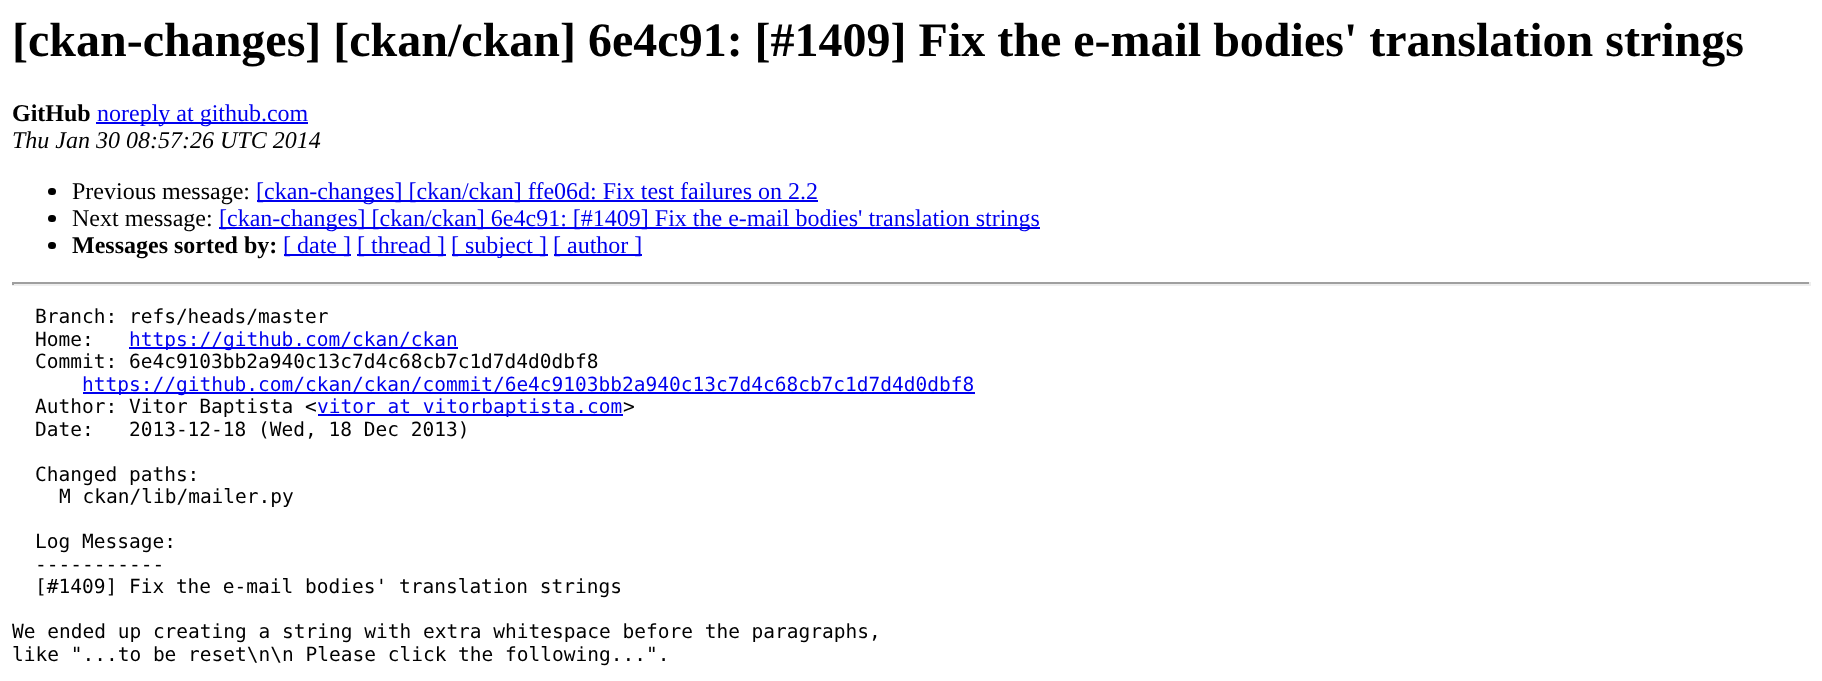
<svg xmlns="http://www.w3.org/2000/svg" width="1822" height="681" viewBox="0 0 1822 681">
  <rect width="100%" height="100%" fill="#ffffff"/>
  <text x="12" y="56" font-family="Liberation Serif" font-size="48" font-weight="bold" fill="#000000">[ckan-changes] [ckan/ckan] 6e4c91: [#1409] Fix the e-mail bodies' translation strings</text>
  <text x="12" y="121" font-family="Liberation Serif" font-size="24" font-weight="bold" fill="#000000">GitHub</text>
  <rect x="96" y="122" width="212" height="2" fill="#0000ee"/>
  <text x="97" y="121" font-family="Liberation Serif" font-size="24" fill="#0000ee">noreply at github.com</text>
  <text x="12" y="148" font-family="Liberation Serif" font-size="24" font-style="italic" fill="#000000">Thu Jan 30 08:57:26 UTC 2014</text>
  <rect x="48" y="188" width="8" height="7" rx="3.5" fill="#000000"/>
  <text x="72" y="199" font-family="Liberation Serif" font-size="24" fill="#000000">Previous message:</text>
  <rect x="257" y="200" width="561" height="2" fill="#0000ee"/>
  <text x="256" y="199" font-family="Liberation Serif" font-size="24" fill="#0000ee">[ckan-changes] [ckan/ckan] ffe06d: Fix test failures on 2.2</text>
  <rect x="48" y="215" width="8" height="7" rx="3.5" fill="#000000"/>
  <text x="72" y="226" font-family="Liberation Serif" font-size="24" fill="#000000">Next message:</text>
  <rect x="219" y="227" width="821" height="2" fill="#0000ee"/>
  <text x="219" y="226" font-family="Liberation Serif" font-size="24" fill="#0000ee">[ckan-changes] [ckan/ckan] 6e4c91: [#1409] Fix the e-mail bodies' translation strings</text>
  <rect x="48" y="242" width="8" height="7" rx="3.5" fill="#000000"/>
  <text x="72" y="253" font-family="Liberation Serif" font-size="24" font-weight="bold" fill="#000000">Messages sorted by:</text>
  <rect x="284" y="254" width="67" height="2" fill="#0000ee"/>
  <text x="283" y="253" font-family="Liberation Serif" font-size="24" fill="#0000ee">[ date ]</text>
  <rect x="357" y="254" width="89" height="2" fill="#0000ee"/>
  <text x="357" y="253" font-family="Liberation Serif" font-size="24" fill="#0000ee">[ thread ]</text>
  <rect x="452" y="254" width="96" height="2" fill="#0000ee"/>
  <text x="451" y="253" font-family="Liberation Serif" font-size="24" fill="#0000ee">[ subject ]</text>
  <rect x="554" y="254" width="88" height="2" fill="#0000ee"/>
  <text x="553" y="253" font-family="Liberation Serif" font-size="24" fill="#0000ee">[ author ]</text>
  <rect x="12" y="282" width="1799" height="2" fill="#9f9f9f"/>
  <rect x="1809" y="282" width="2" height="3" fill="#eeeeee"/>
  <rect x="12" y="284" width="1799" height="2" fill="#eeeeee"/>
  <rect x="12" y="282" width="2" height="3" fill="#9f9f9f"/>
  <text x="35" y="323" font-family="DejaVu Sans Mono" font-size="19.5" fill="#000000">Branch: refs/heads/master</text>
  <text x="35" y="346" font-family="DejaVu Sans Mono" font-size="19.5" fill="#000000">Home:</text>
  <rect x="129" y="347" width="329" height="2" fill="#0000ee"/>
  <text x="129" y="346" font-family="DejaVu Sans Mono" font-size="19.5" fill="#0000ee">https://github.com/ckan/ckan</text>
  <text x="35" y="368" font-family="DejaVu Sans Mono" font-size="19.5" fill="#000000">Commit: 6e4c9103bb2a940c13c7d4c68cb7c1d7d4d0dbf8</text>
  <rect x="83" y="392" width="892" height="2" fill="#0000ee"/>
  <text x="82" y="391" font-family="DejaVu Sans Mono" font-size="19.5" fill="#0000ee">https://github.com/ckan/ckan/commit/6e4c9103bb2a940c13c7d4c68cb7c1d7d4d0dbf8</text>
  <text x="35" y="413" font-family="DejaVu Sans Mono" font-size="19.5" fill="#000000">Author: Vitor Baptista &lt;</text>
  <rect x="318" y="414" width="305" height="2" fill="#0000ee"/>
  <text x="317" y="413" font-family="DejaVu Sans Mono" font-size="19.5" fill="#0000ee">vitor at vitorbaptista.com</text>
  <text x="623" y="413" font-family="DejaVu Sans Mono" font-size="19.5" fill="#000000">&gt;</text>
  <text x="35" y="436" font-family="DejaVu Sans Mono" font-size="19.5" fill="#000000" xml:space="preserve">Date:   2013-12-18 (Wed, 18 Dec 2013)</text>
  <text x="35" y="481" font-family="DejaVu Sans Mono" font-size="19.5" fill="#000000">Changed paths:</text>
  <text x="59" y="503" font-family="DejaVu Sans Mono" font-size="19.5" fill="#000000">M ckan/lib/mailer.py</text>
  <text x="35" y="548" font-family="DejaVu Sans Mono" font-size="19.5" fill="#000000">Log Message:</text>
  <text x="35" y="571" font-family="DejaVu Sans Mono" font-size="19.5" fill="#000000">-----------</text>
  <text x="35" y="593" font-family="DejaVu Sans Mono" font-size="19.5" fill="#000000">[#1409] Fix the e-mail bodies' translation strings</text>
  <text x="12" y="638" font-family="DejaVu Sans Mono" font-size="19.5" fill="#000000">We ended up creating a string with extra whitespace before the paragraphs,</text>
  <text x="12" y="661" font-family="DejaVu Sans Mono" font-size="19.5" fill="#000000">like "...to be reset\n\n Please click the following...".</text>
</svg>
